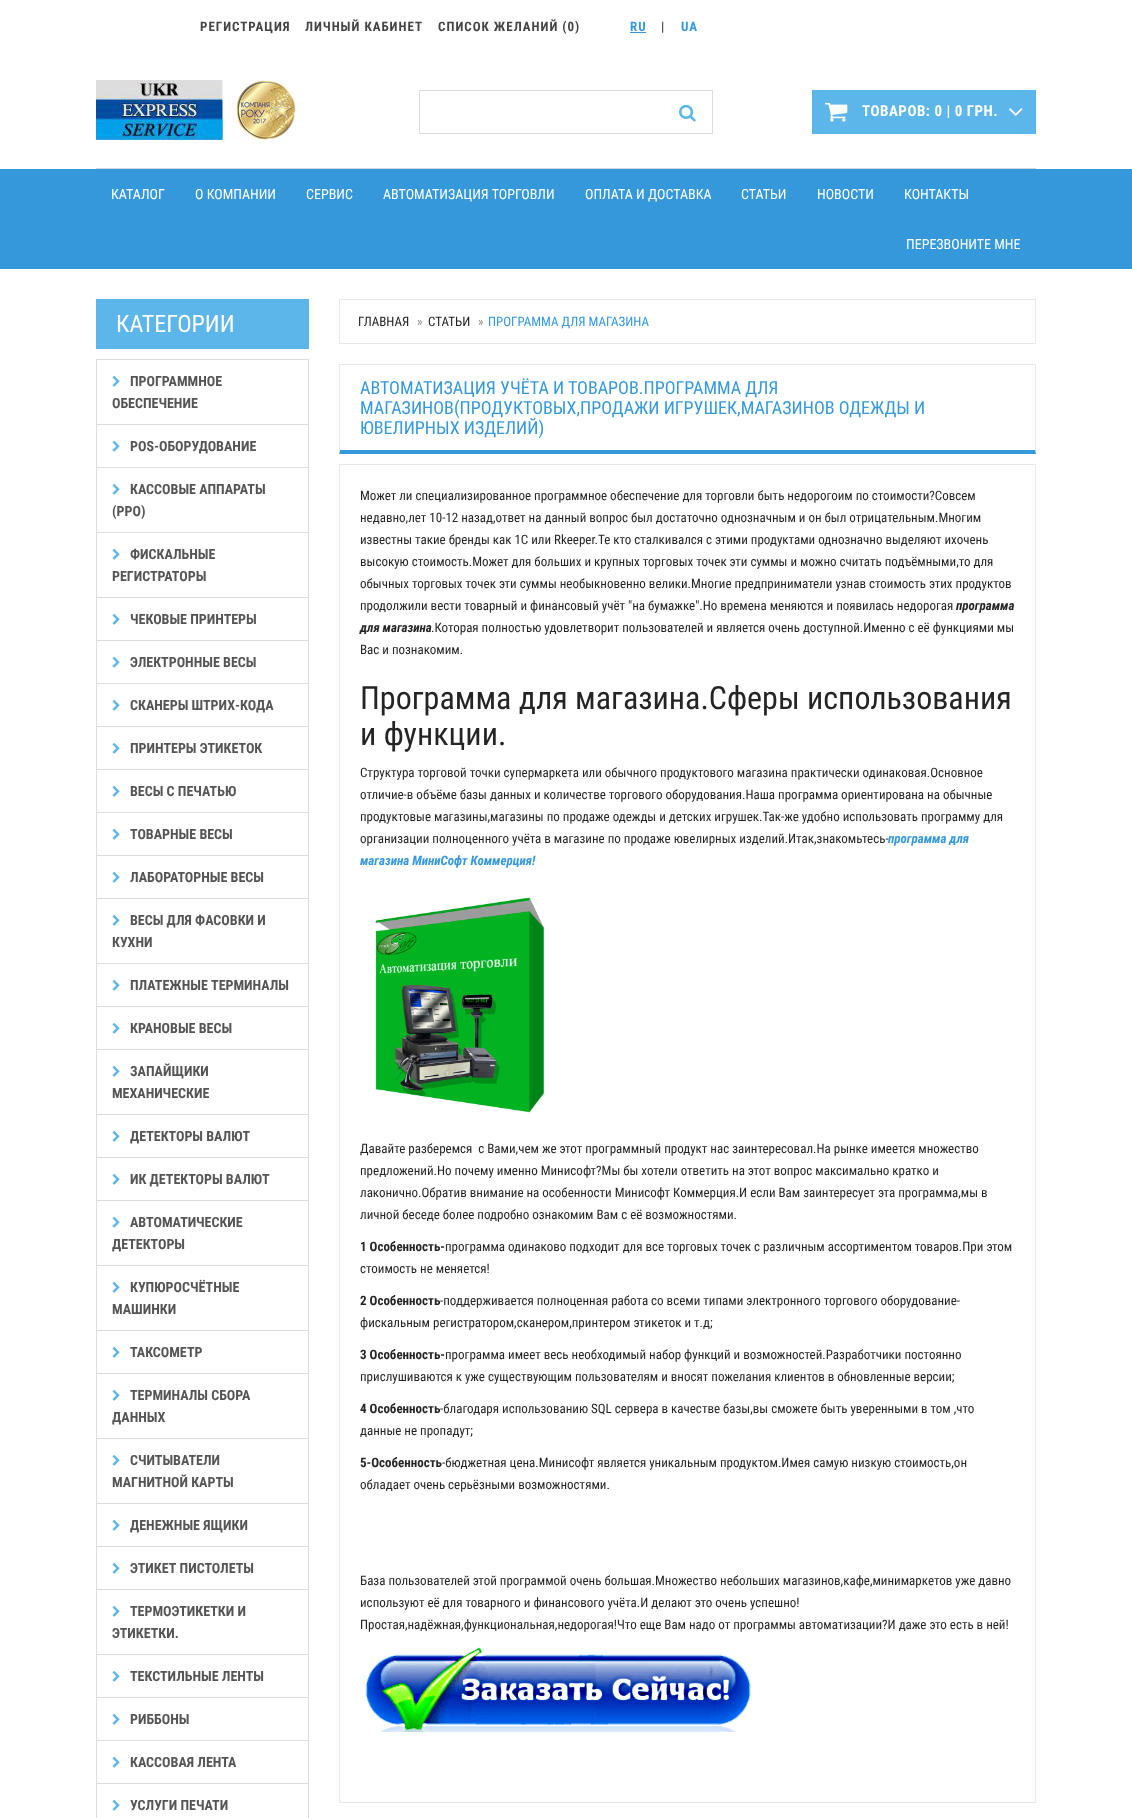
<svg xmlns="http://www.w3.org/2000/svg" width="1132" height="1818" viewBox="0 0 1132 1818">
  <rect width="100%" height="100%" fill="#ffffff"/>
  <rect x="96" y="168" width="940" height="1" fill="#d1d5dd"/>
  <text x="200" y="31" font-family="Roboto Condensed" font-size="13" font-weight="bold" letter-spacing="1" fill="#444444">РЕГИСТРАЦИЯ</text>
  <text x="305" y="31" font-family="Roboto Condensed" font-size="13" font-weight="bold" letter-spacing="1" fill="#444444">ЛИЧНЫЙ КАБИНЕТ</text>
  <text x="438" y="31" font-family="Roboto Condensed" font-size="13" font-weight="bold" letter-spacing="1" fill="#444444">СПИСОК ЖЕЛАНИЙ (0)</text>
  <text x="630" y="31" font-family="Roboto Condensed" font-size="13" font-weight="bold" letter-spacing="1" fill="#3498db">RU</text>
  <rect x="630" y="32" width="16" height="1" fill="#3498db"/>
  <text x="661" y="31" font-family="Roboto Condensed" font-size="13" font-weight="bold" letter-spacing="1" fill="#444444">|</text>
  <text x="681" y="31" font-family="Roboto Condensed" font-size="13" font-weight="bold" letter-spacing="1" fill="#3498db">UA</text>
  <image x="96" y="80" width="200" height="60" href="img1.png"/>
  <rect x="419" y="90" width="294" height="1" fill="#dddddd"/>
  <rect x="419" y="133" width="245" height="1" fill="#dddddd"/>
  <rect x="419" y="90" width="1" height="44" fill="#dddddd"/>
  <rect x="712" y="90" width="1" height="44" fill="#dddddd"/>
  <rect x="663" y="133" width="50" height="1" fill="#dddddd"/>
  <image x="679" y="104" width="17" height="18" href="img2.png"/>
  <rect x="812" y="90" width="224" height="44" fill="#5db6ea"/>
  <image x="825" y="102" width="23" height="20" href="img3.png"/>
  <text x="862" y="116" font-family="Roboto Condensed" font-size="15" font-weight="bold" letter-spacing="0.5" fill="#ffffff">ТОВАРОВ: 0 | 0 ГРН.</text>
  <image x="1009" y="108" width="14" height="8" href="img4.png"/>
  <rect x="0" y="169" width="1132" height="100" fill="#3498db"/>
  <text x="111" y="199" font-family="Roboto Condensed" font-size="14" fill="#ffffff">КАТАЛОГ</text>
  <text x="195" y="199" font-family="Roboto Condensed" font-size="14" fill="#ffffff">О КОМПАНИИ</text>
  <text x="306" y="199" font-family="Roboto Condensed" font-size="14" fill="#ffffff">СЕРВИС</text>
  <text x="383" y="199" font-family="Roboto Condensed" font-size="14" fill="#ffffff">АВТОМАТИЗАЦИЯ ТОРГОВЛИ</text>
  <text x="585" y="199" font-family="Roboto Condensed" font-size="14" fill="#ffffff">ОПЛАТА И ДОСТАВКА</text>
  <text x="741" y="199" font-family="Roboto Condensed" font-size="14" fill="#ffffff">СТАТЬИ</text>
  <text x="817" y="199" font-family="Roboto Condensed" font-size="14" fill="#ffffff">НОВОСТИ</text>
  <text x="904" y="199" font-family="Roboto Condensed" font-size="14" fill="#ffffff">КОНТАКТЫ</text>
  <text x="906" y="249" font-family="Roboto Condensed" font-size="14" fill="#ffffff">ПЕРЕЗВОНИТЕ МНЕ</text>
  <rect x="96" y="299" width="213" height="50" fill="#5db6ea"/>
  <text x="116" y="332" font-family="Roboto Condensed" font-size="24" fill="#ffffff">КАТЕГОРИИ</text>
  <rect x="96.5" y="359.5" width="212" height="65" fill="none" stroke="#dddddd"/>
  <image x="112" y="375" width="8" height="12" href="img5.png"/>
  <text x="130" y="386" font-family="Roboto Condensed" font-size="14" font-weight="bold" fill="#555555">ПРОГРАММНОЕ</text>
  <text x="112" y="408" font-family="Roboto Condensed" font-size="14" font-weight="bold" fill="#555555">ОБЕСПЕЧЕНИЕ</text>
  <rect x="96.5" y="424.5" width="212" height="43" fill="none" stroke="#dddddd"/>
  <image x="112" y="440" width="8" height="12" href="img5.png"/>
  <text x="130" y="451" font-family="Roboto Condensed" font-size="14" font-weight="bold" fill="#555555">POS-ОБОРУДОВАНИЕ</text>
  <rect x="96.5" y="467.5" width="212" height="65" fill="none" stroke="#dddddd"/>
  <image x="112" y="483" width="8" height="12" href="img5.png"/>
  <text x="130" y="494" font-family="Roboto Condensed" font-size="14" font-weight="bold" fill="#555555">КАССОВЫЕ АППАРАТЫ</text>
  <text x="112" y="516" font-family="Roboto Condensed" font-size="14" font-weight="bold" fill="#555555">(РРО)</text>
  <rect x="96.5" y="532.5" width="212" height="65" fill="none" stroke="#dddddd"/>
  <image x="112" y="548" width="8" height="12" href="img5.png"/>
  <text x="130" y="559" font-family="Roboto Condensed" font-size="14" font-weight="bold" fill="#555555">ФИСКАЛЬНЫЕ</text>
  <text x="112" y="581" font-family="Roboto Condensed" font-size="14" font-weight="bold" fill="#555555">РЕГИСТРАТОРЫ</text>
  <rect x="96.5" y="597.5" width="212" height="43" fill="none" stroke="#dddddd"/>
  <image x="112" y="613" width="8" height="12" href="img5.png"/>
  <text x="130" y="624" font-family="Roboto Condensed" font-size="14" font-weight="bold" fill="#555555">ЧЕКОВЫЕ ПРИНТЕРЫ</text>
  <rect x="96.5" y="640.5" width="212" height="43" fill="none" stroke="#dddddd"/>
  <image x="112" y="656" width="8" height="12" href="img5.png"/>
  <text x="130" y="667" font-family="Roboto Condensed" font-size="14" font-weight="bold" fill="#555555">ЭЛЕКТРОННЫЕ ВЕСЫ</text>
  <rect x="96.5" y="683.5" width="212" height="43" fill="none" stroke="#dddddd"/>
  <image x="112" y="699" width="8" height="12" href="img5.png"/>
  <text x="130" y="710" font-family="Roboto Condensed" font-size="14" font-weight="bold" fill="#555555">СКАНЕРЫ ШТРИХ-КОДА</text>
  <rect x="96.5" y="726.5" width="212" height="43" fill="none" stroke="#dddddd"/>
  <image x="112" y="742" width="8" height="12" href="img5.png"/>
  <text x="130" y="753" font-family="Roboto Condensed" font-size="14" font-weight="bold" fill="#555555">ПРИНТЕРЫ ЭТИКЕТОК</text>
  <rect x="96.5" y="769.5" width="212" height="43" fill="none" stroke="#dddddd"/>
  <image x="112" y="785" width="8" height="12" href="img5.png"/>
  <text x="130" y="796" font-family="Roboto Condensed" font-size="14" font-weight="bold" fill="#555555">ВЕСЫ С ПЕЧАТЬЮ</text>
  <rect x="96.5" y="812.5" width="212" height="43" fill="none" stroke="#dddddd"/>
  <image x="112" y="828" width="8" height="12" href="img5.png"/>
  <text x="130" y="839" font-family="Roboto Condensed" font-size="14" font-weight="bold" fill="#555555">ТОВАРНЫЕ ВЕСЫ</text>
  <rect x="96.5" y="855.5" width="212" height="43" fill="none" stroke="#dddddd"/>
  <image x="112" y="871" width="8" height="12" href="img5.png"/>
  <text x="130" y="882" font-family="Roboto Condensed" font-size="14" font-weight="bold" fill="#555555">ЛАБОРАТОРНЫЕ ВЕСЫ</text>
  <rect x="96.5" y="898.5" width="212" height="65" fill="none" stroke="#dddddd"/>
  <image x="112" y="914" width="8" height="12" href="img5.png"/>
  <text x="130" y="925" font-family="Roboto Condensed" font-size="14" font-weight="bold" fill="#555555">ВЕСЫ ДЛЯ ФАСОВКИ И</text>
  <text x="112" y="947" font-family="Roboto Condensed" font-size="14" font-weight="bold" fill="#555555">КУХНИ</text>
  <rect x="96.5" y="963.5" width="212" height="43" fill="none" stroke="#dddddd"/>
  <image x="112" y="979" width="8" height="12" href="img5.png"/>
  <text x="130" y="990" font-family="Roboto Condensed" font-size="14" font-weight="bold" fill="#555555">ПЛАТЕЖНЫЕ ТЕРМИНАЛЫ</text>
  <rect x="96.5" y="1006.5" width="212" height="43" fill="none" stroke="#dddddd"/>
  <image x="112" y="1022" width="8" height="12" href="img5.png"/>
  <text x="130" y="1033" font-family="Roboto Condensed" font-size="14" font-weight="bold" fill="#555555">КРАНОВЫЕ ВЕСЫ</text>
  <rect x="96.5" y="1049.5" width="212" height="65" fill="none" stroke="#dddddd"/>
  <image x="112" y="1065" width="8" height="12" href="img5.png"/>
  <text x="130" y="1076" font-family="Roboto Condensed" font-size="14" font-weight="bold" fill="#555555">ЗАПАЙЩИКИ</text>
  <text x="112" y="1098" font-family="Roboto Condensed" font-size="14" font-weight="bold" fill="#555555">МЕХАНИЧЕСКИЕ</text>
  <rect x="96.5" y="1114.5" width="212" height="43" fill="none" stroke="#dddddd"/>
  <image x="112" y="1130" width="8" height="12" href="img5.png"/>
  <text x="130" y="1141" font-family="Roboto Condensed" font-size="14" font-weight="bold" fill="#555555">ДЕТЕКТОРЫ ВАЛЮТ</text>
  <rect x="96.5" y="1157.5" width="212" height="43" fill="none" stroke="#dddddd"/>
  <image x="112" y="1173" width="8" height="12" href="img5.png"/>
  <text x="130" y="1184" font-family="Roboto Condensed" font-size="14" font-weight="bold" fill="#555555">ИК ДЕТЕКТОРЫ ВАЛЮТ</text>
  <rect x="96.5" y="1200.5" width="212" height="65" fill="none" stroke="#dddddd"/>
  <image x="112" y="1216" width="8" height="12" href="img5.png"/>
  <text x="130" y="1227" font-family="Roboto Condensed" font-size="14" font-weight="bold" fill="#555555">АВТОМАТИЧЕСКИЕ</text>
  <text x="112" y="1249" font-family="Roboto Condensed" font-size="14" font-weight="bold" fill="#555555">ДЕТЕКТОРЫ</text>
  <rect x="96.5" y="1265.5" width="212" height="65" fill="none" stroke="#dddddd"/>
  <image x="112" y="1281" width="8" height="12" href="img5.png"/>
  <text x="130" y="1292" font-family="Roboto Condensed" font-size="14" font-weight="bold" fill="#555555">КУПЮРОСЧЁТНЫЕ</text>
  <text x="112" y="1314" font-family="Roboto Condensed" font-size="14" font-weight="bold" fill="#555555">МАШИНКИ</text>
  <rect x="96.5" y="1330.5" width="212" height="43" fill="none" stroke="#dddddd"/>
  <image x="112" y="1346" width="8" height="12" href="img5.png"/>
  <text x="130" y="1357" font-family="Roboto Condensed" font-size="14" font-weight="bold" fill="#555555">ТАКСОМЕТР</text>
  <rect x="96.5" y="1373.5" width="212" height="65" fill="none" stroke="#dddddd"/>
  <image x="112" y="1389" width="8" height="12" href="img5.png"/>
  <text x="130" y="1400" font-family="Roboto Condensed" font-size="14" font-weight="bold" fill="#555555">ТЕРМИНАЛЫ СБОРА</text>
  <text x="112" y="1422" font-family="Roboto Condensed" font-size="14" font-weight="bold" fill="#555555">ДАННЫХ</text>
  <rect x="96.5" y="1438.5" width="212" height="65" fill="none" stroke="#dddddd"/>
  <image x="112" y="1454" width="8" height="12" href="img5.png"/>
  <text x="130" y="1465" font-family="Roboto Condensed" font-size="14" font-weight="bold" fill="#555555">СЧИТЫВАТЕЛИ</text>
  <text x="112" y="1487" font-family="Roboto Condensed" font-size="14" font-weight="bold" fill="#555555">МАГНИТНОЙ КАРТЫ</text>
  <rect x="96.5" y="1503.5" width="212" height="43" fill="none" stroke="#dddddd"/>
  <image x="112" y="1519" width="8" height="12" href="img5.png"/>
  <text x="130" y="1530" font-family="Roboto Condensed" font-size="14" font-weight="bold" fill="#555555">ДЕНЕЖНЫЕ ЯЩИКИ</text>
  <rect x="96.5" y="1546.5" width="212" height="43" fill="none" stroke="#dddddd"/>
  <image x="112" y="1562" width="8" height="12" href="img5.png"/>
  <text x="130" y="1573" font-family="Roboto Condensed" font-size="14" font-weight="bold" fill="#555555">ЭТИКЕТ ПИСТОЛЕТЫ</text>
  <rect x="96.5" y="1589.5" width="212" height="65" fill="none" stroke="#dddddd"/>
  <image x="112" y="1605" width="8" height="12" href="img5.png"/>
  <text x="130" y="1616" font-family="Roboto Condensed" font-size="14" font-weight="bold" fill="#555555">ТЕРМОЭТИКЕТКИ И</text>
  <text x="112" y="1638" font-family="Roboto Condensed" font-size="14" font-weight="bold" fill="#555555">ЭТИКЕТКИ.</text>
  <rect x="96.5" y="1654.5" width="212" height="43" fill="none" stroke="#dddddd"/>
  <image x="112" y="1670" width="8" height="12" href="img5.png"/>
  <text x="130" y="1681" font-family="Roboto Condensed" font-size="14" font-weight="bold" fill="#555555">ТЕКСТИЛЬНЫЕ ЛЕНТЫ</text>
  <rect x="96.5" y="1697.5" width="212" height="43" fill="none" stroke="#dddddd"/>
  <image x="112" y="1713" width="8" height="12" href="img5.png"/>
  <text x="130" y="1724" font-family="Roboto Condensed" font-size="14" font-weight="bold" fill="#555555">РИББОНЫ</text>
  <rect x="96.5" y="1740.5" width="212" height="43" fill="none" stroke="#dddddd"/>
  <image x="112" y="1756" width="8" height="12" href="img5.png"/>
  <text x="130" y="1767" font-family="Roboto Condensed" font-size="14" font-weight="bold" fill="#555555">КАССОВАЯ ЛЕНТА</text>
  <rect x="96.5" y="1783.5" width="212" height="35" fill="none" stroke="#dddddd"/>
  <image x="112" y="1799" width="8" height="12" href="img5.png"/>
  <text x="130" y="1810" font-family="Roboto Condensed" font-size="14" font-weight="bold" fill="#555555">УСЛУГИ ПЕЧАТИ</text>
  <rect x="339.5" y="299.5" width="696" height="44" fill="none" stroke="#e8e8e8"/>
  <text x="358" y="326" font-family="Roboto Condensed" font-size="13" fill="#242424">ГЛАВНАЯ</text>
  <text x="417" y="326" font-family="Roboto Condensed" font-size="13" fill="#878a8c">»</text>
  <text x="428" y="326" font-family="Roboto Condensed" font-size="13" fill="#242424">СТАТЬИ</text>
  <text x="478" y="326" font-family="Roboto Condensed" font-size="13" fill="#878a8c">»</text>
  <text x="488" y="326" font-family="Roboto Condensed" font-size="13" fill="#3498db">ПРОГРАММА ДЛЯ МАГАЗИНА</text>
  <rect x="339" y="364" width="697" height="1" fill="#e8e8e8"/>
  <path d="M1036 364V454L1035 450V365Z" fill="#e8e8e8"/>
  <path d="M1036 454H339L340 450H1035Z" fill="#3498db"/>
  <path d="M339 454V364L340 365V450Z" fill="#e8e8e8"/>
  <text x="360" y="394" font-family="Roboto Condensed" font-size="18" fill="#3498db">АВТОМАТИЗАЦИЯ УЧЁТА И ТОВАРОВ.ПРОГРАММА ДЛЯ</text>
  <text x="360" y="414" font-family="Roboto Condensed" font-size="18" fill="#3498db">МАГАЗИНОВ(ПРОДУКТОВЫХ,ПРОДАЖИ ИГРУШЕК,МАГАЗИНОВ ОДЕЖДЫ И</text>
  <text x="360" y="434" font-family="Roboto Condensed" font-size="18" fill="#3498db">ЮВЕЛИРНЫХ ИЗДЕЛИЙ)</text>
  <rect x="339.5" y="464.5" width="696" height="1338" fill="none" stroke="#e8e8e8"/>
  <text x="360" y="500" font-family="Roboto Condensed" font-size="13" fill="#242424">Может ли специализированное программное обеспечение для торговли быть недорогоим по стоимости?Совсем</text>
  <text x="360" y="522" font-family="Roboto Condensed" font-size="13" fill="#242424">недавно,лет 10-12 назад,ответ на данный вопрос был достаточно однозначным и он был отрицательным.Многим</text>
  <text x="360" y="544" font-family="Roboto Condensed" font-size="13" fill="#242424">известны такие бренды как 1С или Rkeeper.Те кто сталкивался с этими продуктами однозначно выделяют ихочень</text>
  <text x="360" y="566" font-family="Roboto Condensed" font-size="13" fill="#242424">высокую стоимость.Может для больших и крупных торговых точек эти суммы и можно считать подъёмными,то для</text>
  <text x="360" y="588" font-family="Roboto Condensed" font-size="13" fill="#242424">обычных торговых точек эти суммы необыкновенно велики.Многие предприниматели узнав стоимость этих продуктов</text>
  <text x="360" y="610" font-family="Roboto Condensed" font-size="13" fill="#242424">продолжили вести товарный и финансовый учёт "на бумажке".Но времена меняются и появилась недорогая</text>
  <text x="956" y="610" font-family="Roboto Condensed" font-size="13" font-weight="bold" font-style="italic" fill="#242424">программа</text>
  <text x="360" y="632" font-family="Roboto Condensed" font-size="13" font-weight="bold" font-style="italic" fill="#242424">для магазина</text>
  <text x="431" y="632" font-family="Roboto Condensed" font-size="13" fill="#242424">.Которая полностью удовлетворит пользователей и является очень доступной.Именно с её функциями мы</text>
  <text x="360" y="654" font-family="Roboto Condensed" font-size="13" fill="#242424">Вас и познакомим.</text>
  <text x="360" y="709" font-family="Roboto Condensed" font-size="32" fill="#242424">Программа для магазина.Сферы использования</text>
  <text x="360" y="745" font-family="Roboto Condensed" font-size="32" fill="#242424">и функции.</text>
  <text x="360" y="777" font-family="Roboto Condensed" font-size="13" fill="#242424">Структура торговой точки супермаркета или обычного продуктового магазина практически одинаковая.Основное</text>
  <text x="360" y="799" font-family="Roboto Condensed" font-size="13" fill="#242424">отличие-в объёме базы данных и количестве торгового оборудования.Наша программа ориентирована на обычные</text>
  <text x="360" y="821" font-family="Roboto Condensed" font-size="13" fill="#242424">продуктовые магазины,магазины по продаже одежды и детских игрушек.Так-же удобно использовать программу для</text>
  <text x="360" y="843" font-family="Roboto Condensed" font-size="13" fill="#242424">организации полноценного учёта в магазине по продаже ювелирных изделий.Итак,знакомьтесь-</text>
  <text x="888" y="843" font-family="Roboto Condensed" font-size="13" font-weight="bold" font-style="italic" fill="#3498db">программа для</text>
  <text x="360" y="865" font-family="Roboto Condensed" font-size="13" font-weight="bold" font-style="italic" fill="#3498db">магазина МиниСофт Коммерция!</text>
  <image x="375" y="897" width="170" height="216" href="img6.png"/>
  <text x="360" y="1153" font-family="Roboto Condensed" font-size="13" fill="#242424" xml:space="preserve">Давайте разберемся  с Вами,чем же этот программный продукт нас заинтересовал.На рынке имеется множество</text>
  <text x="360" y="1175" font-family="Roboto Condensed" font-size="13" fill="#242424">предложений.Но почему именно Минисофт?Мы бы хотели ответить на этот вопрос максимально кратко и</text>
  <text x="360" y="1197" font-family="Roboto Condensed" font-size="13" fill="#242424">лаконично.Обратив внимание на особенности Минисофт Коммерция.И если Вам заинтересует эта программа,мы в</text>
  <text x="360" y="1219" font-family="Roboto Condensed" font-size="13" fill="#242424">личной беседе более подробно ознакомим Вам с её возможностями.</text>
  <text x="360" y="1251" font-family="Roboto Condensed" font-size="13" font-weight="bold" fill="#242424">1 Особенность-</text>
  <text x="445" y="1251" font-family="Roboto Condensed" font-size="13" fill="#242424">программа одинаково подходит для все торговых точек с различным ассортиментом товаров.При этом</text>
  <text x="360" y="1273" font-family="Roboto Condensed" font-size="13" fill="#242424">стоимость не меняется!</text>
  <text x="360" y="1305" font-family="Roboto Condensed" font-size="13" font-weight="bold" fill="#242424">2 Особенность</text>
  <text x="440" y="1305" font-family="Roboto Condensed" font-size="13" fill="#242424">-поддерживается полноценная работа со всеми типами электронного торгового оборудование-</text>
  <text x="360" y="1327" font-family="Roboto Condensed" font-size="13" fill="#242424">фискальным регистратором,сканером,принтером этикеток и т.д;</text>
  <text x="360" y="1359" font-family="Roboto Condensed" font-size="13" font-weight="bold" fill="#242424">3 Особенность-</text>
  <text x="445" y="1359" font-family="Roboto Condensed" font-size="13" fill="#242424">программа имеет весь необходимый набор функций и возможностей.Разработчики постоянно</text>
  <text x="360" y="1381" font-family="Roboto Condensed" font-size="13" fill="#242424">прислушиваются к уже существующим пользователям и вносят пожелания клиентов в обновленные версии;</text>
  <text x="360" y="1413" font-family="Roboto Condensed" font-size="13" font-weight="bold" fill="#242424">4 Особенность</text>
  <text x="440" y="1413" font-family="Roboto Condensed" font-size="13" fill="#242424">-благодаря использованию SQL сервера в качестве базы,вы сможете быть уверенными в том ,что</text>
  <text x="360" y="1435" font-family="Roboto Condensed" font-size="13" fill="#242424">данные не пропадут;</text>
  <text x="360" y="1467" font-family="Roboto Condensed" font-size="13" font-weight="bold" fill="#242424">5-Особенность</text>
  <text x="442" y="1467" font-family="Roboto Condensed" font-size="13" fill="#242424">-бюджетная цена.Минисофт является уникальным продуктом.Имея самую низкую стоимость,он</text>
  <text x="360" y="1489" font-family="Roboto Condensed" font-size="13" fill="#242424">обладает очень серьёзными возможностями.</text>
  <text x="360" y="1585" font-family="Roboto Condensed" font-size="13" fill="#242424">База пользователей этой программой очень большая.Множество небольших магазинов,кафе,минимаркетов уже давно</text>
  <text x="360" y="1607" font-family="Roboto Condensed" font-size="13" fill="#242424">используют её для товарного и финансового учёта.И делают это очень успешно!</text>
  <text x="360" y="1629" font-family="Roboto Condensed" font-size="13" fill="#242424">Простая,надёжная,функциональная,недорогая!Что еще Вам надо от программы автоматизации?И даже это есть в ней!</text>
  <image x="365" y="1647" width="386" height="85" href="img7.png"/>
</svg>
